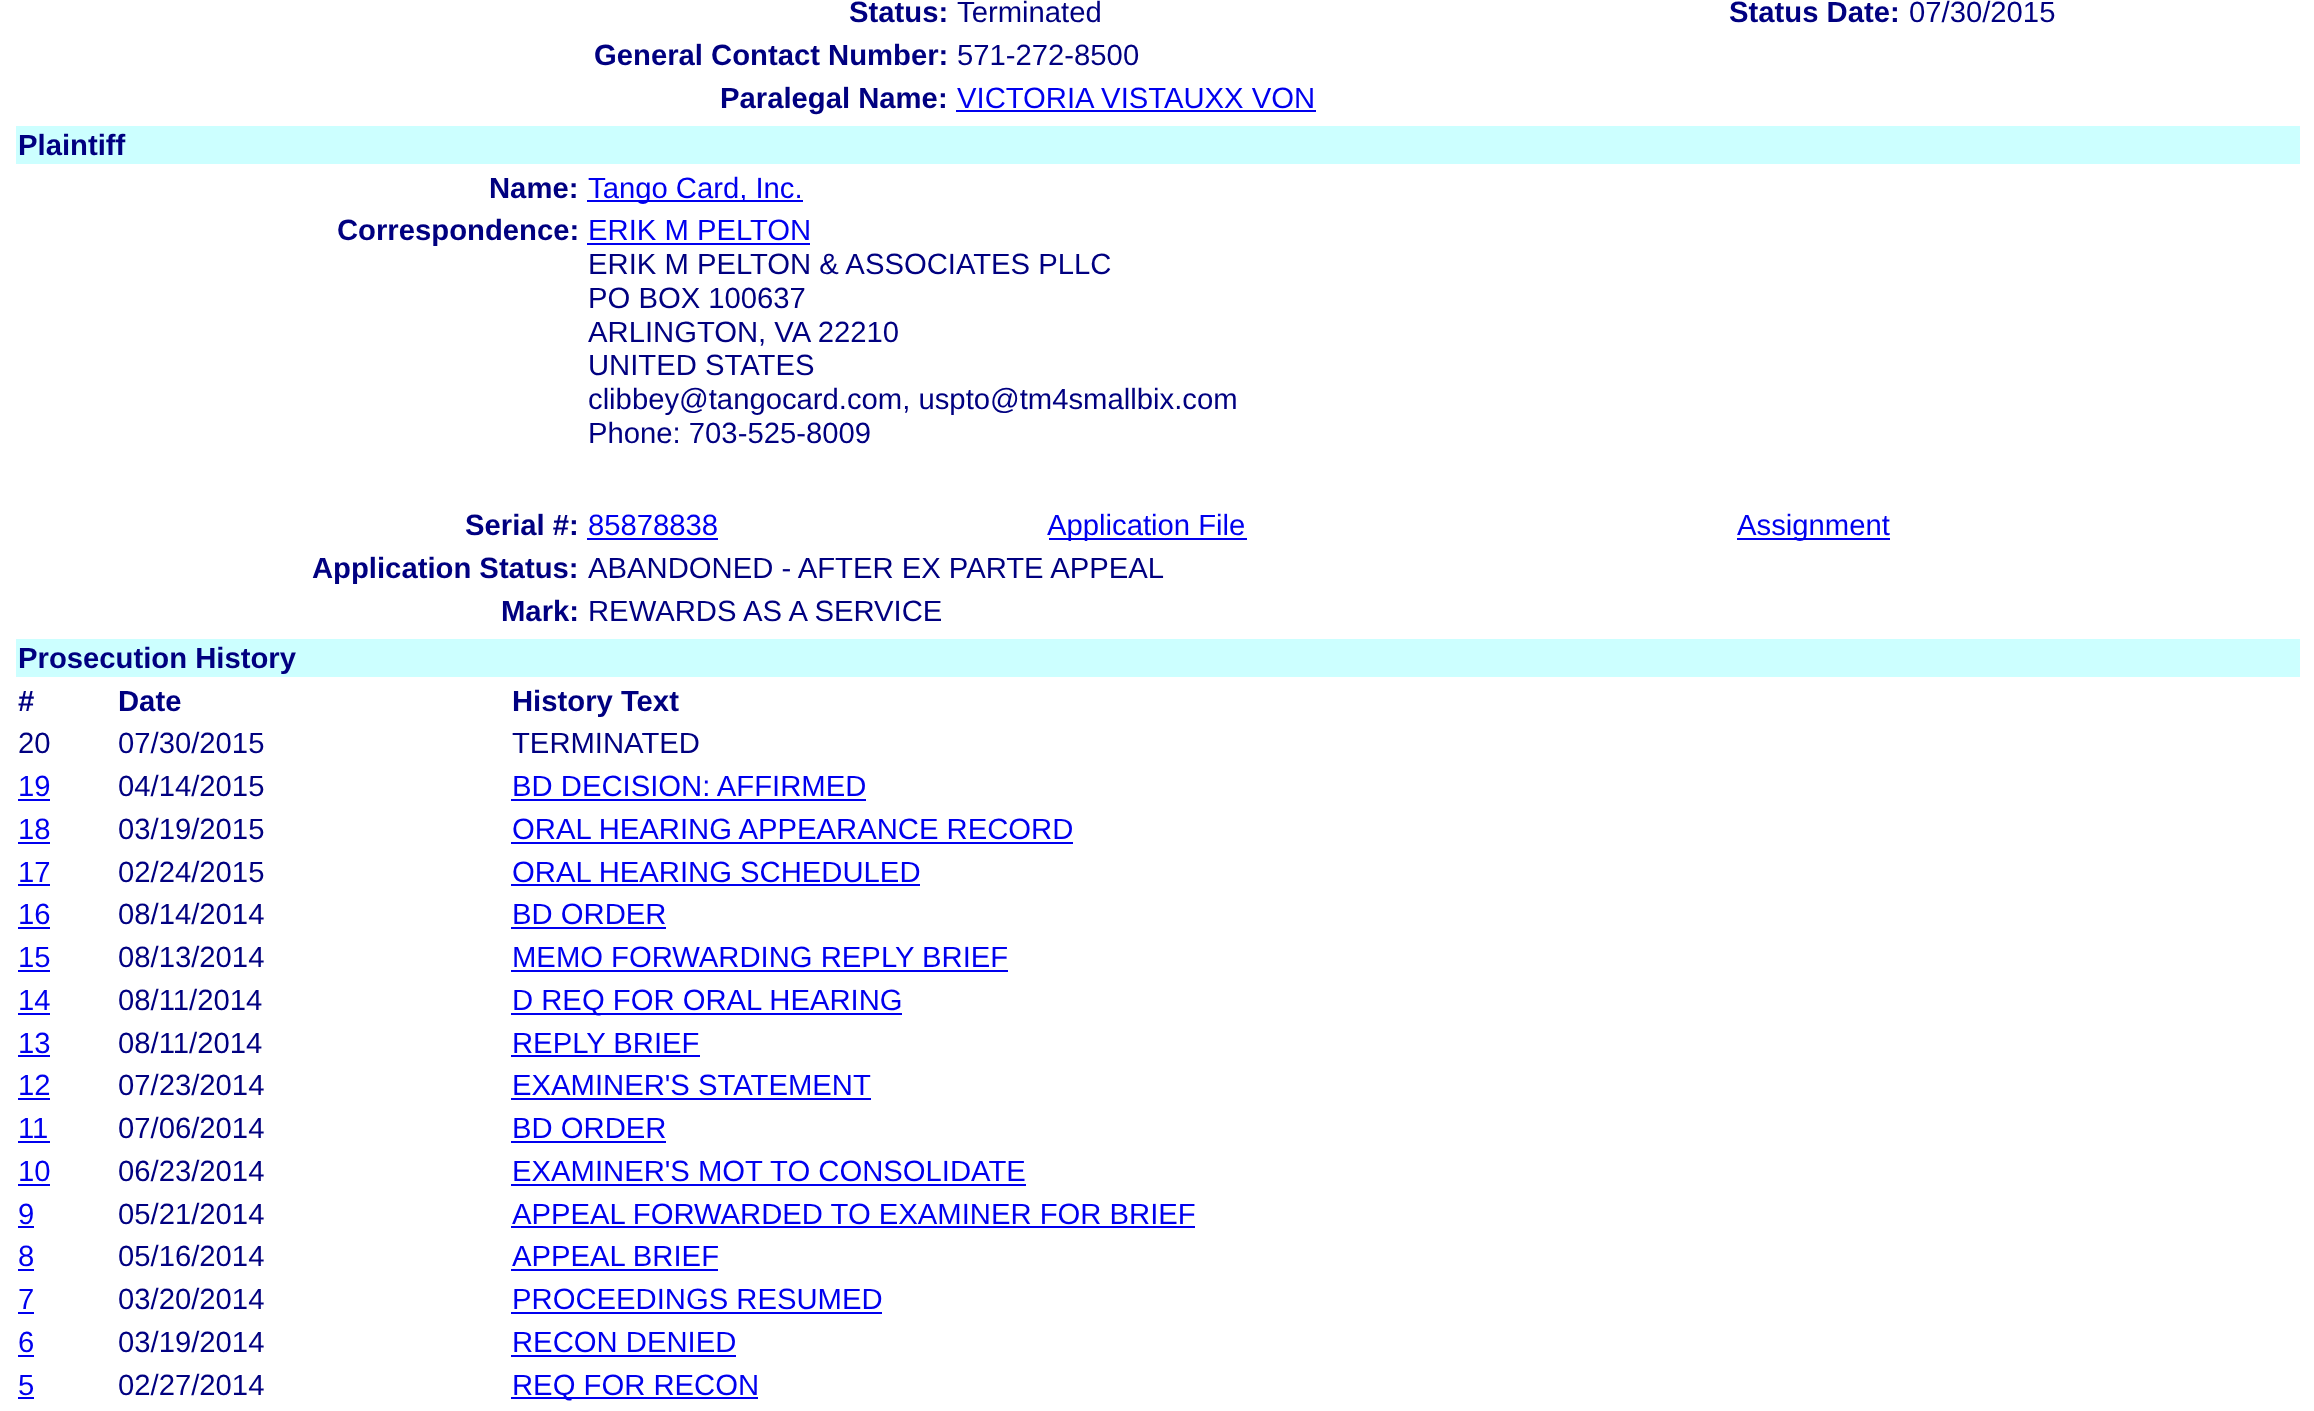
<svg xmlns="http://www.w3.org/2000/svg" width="2314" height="1411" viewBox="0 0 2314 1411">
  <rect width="100%" height="100%" fill="#ffffff"/>
  <text x="849" y="22" font-family="Liberation Sans" font-size="29.25" font-weight="bold" fill="#000080">Status:</text>
  <text x="957" y="22" font-family="Liberation Sans" font-size="29.25" fill="#000080">Terminated</text>
  <text x="1729" y="22" font-family="Liberation Sans" font-size="29.25" font-weight="bold" fill="#000080">Status Date:</text>
  <text x="1909" y="22" font-family="Liberation Sans" font-size="29.25" fill="#000080">07/30/2015</text>
  <text x="594" y="65" font-family="Liberation Sans" font-size="29.25" font-weight="bold" fill="#000080">General Contact Number:</text>
  <text x="957" y="65" font-family="Liberation Sans" font-size="29.25" fill="#000080">571-272-8500</text>
  <text x="720" y="108" font-family="Liberation Sans" font-size="29.25" font-weight="bold" fill="#000080">Paralegal Name:</text>
  <text x="957" y="108" font-family="Liberation Sans" font-size="29.25" fill="#0000ee">VICTORIA VISTAUXX VON</text>
  <rect x="956" y="110" width="360" height="2" fill="#0000ee"/>
  <rect x="16" y="126" width="2284" height="38" fill="#ccffff"/>
  <text x="18" y="155" font-family="Liberation Sans" font-size="29.25" font-weight="bold" fill="#000080">Plaintiff</text>
  <text x="489" y="198" font-family="Liberation Sans" font-size="29.25" font-weight="bold" fill="#000080">Name:</text>
  <rect x="587" y="200" width="216" height="2" fill="#0000ee"/>
  <text x="588" y="198" font-family="Liberation Sans" font-size="29.25" fill="#0000ee">Tango Card, Inc.</text>
  <text x="337" y="240" font-family="Liberation Sans" font-size="29.25" font-weight="bold" fill="#000080">Correspondence:</text>
  <text x="588" y="240" font-family="Liberation Sans" font-size="29.25" fill="#0000ee">ERIK M PELTON</text>
  <rect x="587" y="243" width="223" height="2" fill="#0000ee"/>
  <text x="588" y="274" font-family="Liberation Sans" font-size="29.25" fill="#000080">ERIK M PELTON &amp; ASSOCIATES PLLC</text>
  <text x="588" y="308" font-family="Liberation Sans" font-size="29.25" fill="#000080">PO BOX 100637</text>
  <text x="588" y="342" font-family="Liberation Sans" font-size="29.25" fill="#000080">ARLINGTON, VA 22210</text>
  <text x="588" y="375" font-family="Liberation Sans" font-size="29.25" fill="#000080">UNITED STATES</text>
  <text x="588" y="409" font-family="Liberation Sans" font-size="29.25" fill="#000080">clibbey@tangocard.com, uspto@tm4smallbix.com</text>
  <text x="588" y="443" font-family="Liberation Sans" font-size="29.25" fill="#000080">Phone: 703-525-8009</text>
  <text x="465" y="535" font-family="Liberation Sans" font-size="29.25" font-weight="bold" fill="#000080">Serial #:</text>
  <text x="588" y="535" font-family="Liberation Sans" font-size="29.25" fill="#0000ee">85878838</text>
  <rect x="587" y="538" width="131" height="2" fill="#0000ee"/>
  <rect x="1049" y="538" width="198" height="2" fill="#0000ee"/>
  <text x="1047" y="535" font-family="Liberation Sans" font-size="29.25" fill="#0000ee">Application File</text>
  <rect x="1737" y="538" width="153" height="2" fill="#0000ee"/>
  <text x="1737" y="535" font-family="Liberation Sans" font-size="29.25" fill="#0000ee">Assignment</text>
  <text x="312" y="578" font-family="Liberation Sans" font-size="29.25" font-weight="bold" fill="#000080">Application Status:</text>
  <text x="588" y="578" font-family="Liberation Sans" font-size="29.25" fill="#000080">ABANDONED - AFTER EX PARTE APPEAL</text>
  <text x="501" y="621" font-family="Liberation Sans" font-size="29.25" font-weight="bold" fill="#000080">Mark:</text>
  <text x="588" y="621" font-family="Liberation Sans" font-size="29.25" fill="#000080">REWARDS AS A SERVICE</text>
  <rect x="16" y="639" width="2284" height="38" fill="#ccffff"/>
  <text x="18" y="668" font-family="Liberation Sans" font-size="29.25" font-weight="bold" fill="#000080">Prosecution History</text>
  <text x="18" y="711" font-family="Liberation Sans" font-size="29.25" font-weight="bold" fill="#000080">#</text>
  <text x="118" y="711" font-family="Liberation Sans" font-size="29.25" font-weight="bold" fill="#000080">Date</text>
  <text x="512" y="711" font-family="Liberation Sans" font-size="29.25" font-weight="bold" fill="#000080">History Text</text>
  <text x="18" y="753" font-family="Liberation Sans" font-size="29.25" fill="#000080">20</text>
  <text x="118" y="753" font-family="Liberation Sans" font-size="29.25" fill="#000080">07/30/2015</text>
  <text x="512" y="753" font-family="Liberation Sans" font-size="29.25" fill="#000080">TERMINATED</text>
  <text x="18" y="796" font-family="Liberation Sans" font-size="29.25" fill="#0000ee">19</text>
  <rect x="18" y="799" width="32" height="2" fill="#0000ee"/>
  <text x="118" y="796" font-family="Liberation Sans" font-size="29.25" fill="#000080">04/14/2015</text>
  <text x="512" y="796" font-family="Liberation Sans" font-size="29.25" fill="#0000ee">BD DECISION: AFFIRMED</text>
  <rect x="511" y="799" width="355" height="2" fill="#0000ee"/>
  <text x="18" y="839" font-family="Liberation Sans" font-size="29.25" fill="#0000ee">18</text>
  <rect x="18" y="842" width="32" height="2" fill="#0000ee"/>
  <text x="118" y="839" font-family="Liberation Sans" font-size="29.25" fill="#000080">03/19/2015</text>
  <text x="512" y="839" font-family="Liberation Sans" font-size="29.25" fill="#0000ee">ORAL HEARING APPEARANCE RECORD</text>
  <rect x="511" y="842" width="562" height="2" fill="#0000ee"/>
  <text x="18" y="882" font-family="Liberation Sans" font-size="29.25" fill="#0000ee">17</text>
  <rect x="18" y="884" width="32" height="2" fill="#0000ee"/>
  <text x="118" y="882" font-family="Liberation Sans" font-size="29.25" fill="#000080">02/24/2015</text>
  <text x="512" y="882" font-family="Liberation Sans" font-size="29.25" fill="#0000ee">ORAL HEARING SCHEDULED</text>
  <rect x="511" y="884" width="409" height="2" fill="#0000ee"/>
  <text x="18" y="924" font-family="Liberation Sans" font-size="29.25" fill="#0000ee">16</text>
  <rect x="18" y="927" width="32" height="2" fill="#0000ee"/>
  <text x="118" y="924" font-family="Liberation Sans" font-size="29.25" fill="#000080">08/14/2014</text>
  <text x="512" y="924" font-family="Liberation Sans" font-size="29.25" fill="#0000ee">BD ORDER</text>
  <rect x="511" y="927" width="155" height="2" fill="#0000ee"/>
  <text x="18" y="967" font-family="Liberation Sans" font-size="29.25" fill="#0000ee">15</text>
  <rect x="18" y="970" width="32" height="2" fill="#0000ee"/>
  <text x="118" y="967" font-family="Liberation Sans" font-size="29.25" fill="#000080">08/13/2014</text>
  <text x="512" y="967" font-family="Liberation Sans" font-size="29.25" fill="#0000ee">MEMO FORWARDING REPLY BRIEF</text>
  <rect x="511" y="970" width="497" height="2" fill="#0000ee"/>
  <text x="18" y="1010" font-family="Liberation Sans" font-size="29.25" fill="#0000ee">14</text>
  <rect x="18" y="1013" width="32" height="2" fill="#0000ee"/>
  <text x="118" y="1010" font-family="Liberation Sans" font-size="29.25" fill="#000080">08/11/2014</text>
  <rect x="511" y="1013" width="391" height="2" fill="#0000ee"/>
  <text x="512" y="1010" font-family="Liberation Sans" font-size="29.25" fill="#0000ee">D REQ FOR ORAL HEARING</text>
  <text x="18" y="1053" font-family="Liberation Sans" font-size="29.25" fill="#0000ee">13</text>
  <rect x="18" y="1055" width="32" height="2" fill="#0000ee"/>
  <text x="118" y="1053" font-family="Liberation Sans" font-size="29.25" fill="#000080">08/11/2014</text>
  <text x="512" y="1053" font-family="Liberation Sans" font-size="29.25" fill="#0000ee">REPLY BRIEF</text>
  <rect x="511" y="1055" width="189" height="2" fill="#0000ee"/>
  <text x="18" y="1095" font-family="Liberation Sans" font-size="29.25" fill="#0000ee">12</text>
  <rect x="18" y="1098" width="32" height="2" fill="#0000ee"/>
  <text x="118" y="1095" font-family="Liberation Sans" font-size="29.25" fill="#000080">07/23/2014</text>
  <text x="512" y="1095" font-family="Liberation Sans" font-size="29.25" fill="#0000ee">EXAMINER'S STATEMENT</text>
  <rect x="511" y="1098" width="360" height="2" fill="#0000ee"/>
  <text x="18" y="1138" font-family="Liberation Sans" font-size="29.25" fill="#0000ee">11</text>
  <rect x="18" y="1141" width="32" height="2" fill="#0000ee"/>
  <text x="118" y="1138" font-family="Liberation Sans" font-size="29.25" fill="#000080">07/06/2014</text>
  <text x="512" y="1138" font-family="Liberation Sans" font-size="29.25" fill="#0000ee">BD ORDER</text>
  <rect x="511" y="1141" width="155" height="2" fill="#0000ee"/>
  <text x="18" y="1181" font-family="Liberation Sans" font-size="29.25" fill="#0000ee">10</text>
  <rect x="18" y="1184" width="32" height="2" fill="#0000ee"/>
  <text x="118" y="1181" font-family="Liberation Sans" font-size="29.25" fill="#000080">06/23/2014</text>
  <text x="512" y="1181" font-family="Liberation Sans" font-size="29.25" fill="#0000ee">EXAMINER'S MOT TO CONSOLIDATE</text>
  <rect x="511" y="1184" width="515" height="2" fill="#0000ee"/>
  <text x="18" y="1224" font-family="Liberation Sans" font-size="29.25" fill="#0000ee">9</text>
  <rect x="18" y="1226" width="16" height="2" fill="#0000ee"/>
  <text x="118" y="1224" font-family="Liberation Sans" font-size="29.25" fill="#000080">05/21/2014</text>
  <text x="512" y="1224" font-family="Liberation Sans" font-size="29.25" fill="#0000ee">APPEAL FORWARDED TO EXAMINER FOR BRIEF</text>
  <rect x="511" y="1226" width="684" height="2" fill="#0000ee"/>
  <text x="18" y="1266" font-family="Liberation Sans" font-size="29.25" fill="#0000ee">8</text>
  <rect x="18" y="1269" width="16" height="2" fill="#0000ee"/>
  <text x="118" y="1266" font-family="Liberation Sans" font-size="29.25" fill="#000080">05/16/2014</text>
  <text x="512" y="1266" font-family="Liberation Sans" font-size="29.25" fill="#0000ee">APPEAL BRIEF</text>
  <rect x="511" y="1269" width="207" height="2" fill="#0000ee"/>
  <text x="18" y="1309" font-family="Liberation Sans" font-size="29.25" fill="#0000ee">7</text>
  <rect x="18" y="1312" width="16" height="2" fill="#0000ee"/>
  <text x="118" y="1309" font-family="Liberation Sans" font-size="29.25" fill="#000080">03/20/2014</text>
  <text x="512" y="1309" font-family="Liberation Sans" font-size="29.25" fill="#0000ee">PROCEEDINGS RESUMED</text>
  <rect x="511" y="1312" width="371" height="2" fill="#0000ee"/>
  <text x="18" y="1352" font-family="Liberation Sans" font-size="29.25" fill="#0000ee">6</text>
  <rect x="18" y="1355" width="16" height="2" fill="#0000ee"/>
  <text x="118" y="1352" font-family="Liberation Sans" font-size="29.25" fill="#000080">03/19/2014</text>
  <text x="512" y="1352" font-family="Liberation Sans" font-size="29.25" fill="#0000ee">RECON DENIED</text>
  <rect x="511" y="1355" width="225" height="2" fill="#0000ee"/>
  <text x="18" y="1395" font-family="Liberation Sans" font-size="29.25" fill="#0000ee">5</text>
  <rect x="18" y="1397" width="16" height="2" fill="#0000ee"/>
  <text x="118" y="1395" font-family="Liberation Sans" font-size="29.25" fill="#000080">02/27/2014</text>
  <rect x="511" y="1397" width="247" height="2" fill="#0000ee"/>
  <text x="512" y="1395" font-family="Liberation Sans" font-size="29.25" fill="#0000ee">REQ FOR RECON</text>
</svg>
